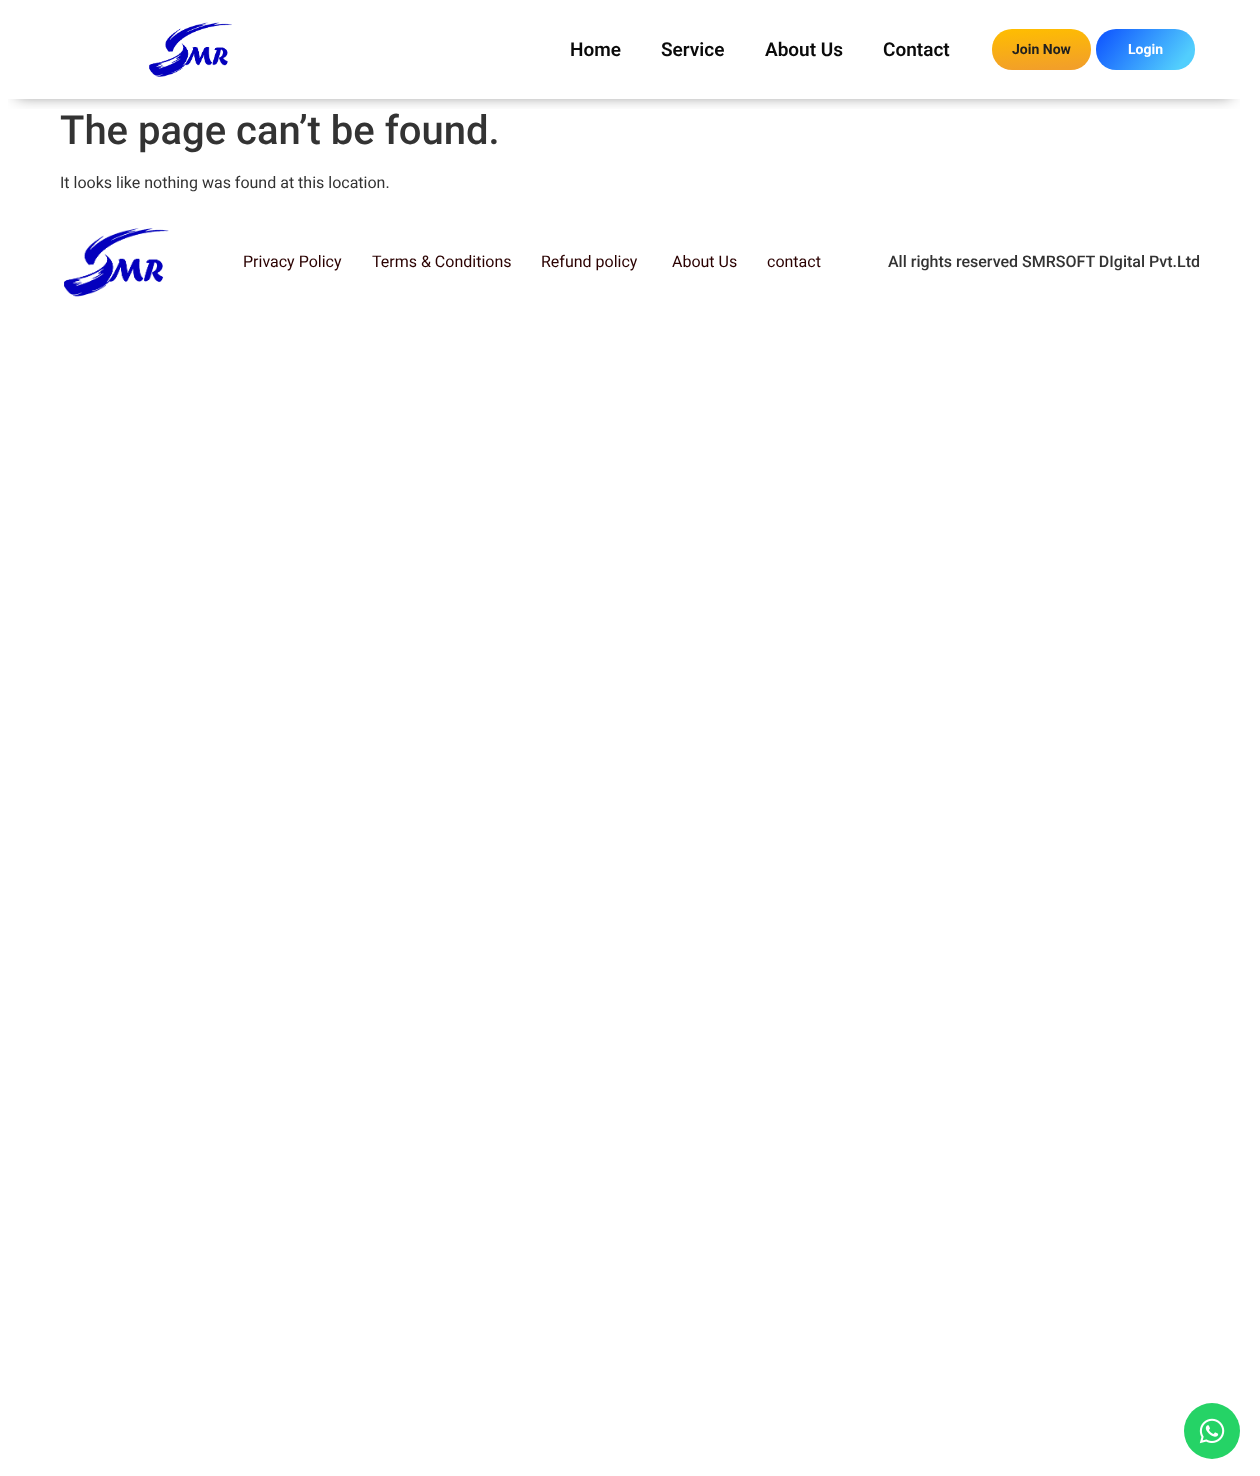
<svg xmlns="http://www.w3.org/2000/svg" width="1260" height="1476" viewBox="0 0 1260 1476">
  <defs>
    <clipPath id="clip1"><rect x="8" y="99" width="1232" height="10"/></clipPath>
    <filter id="blur1" x="-50%" y="-200%" width="200%" height="500%"><feGaussianBlur stdDeviation="7.5"/></filter>
    <linearGradient id="g1" gradientUnits="userSpaceOnUse" x1="1040" y1="26" x2="1043" y2="73"><stop offset="0" stop-color="#ffbe00"/><stop offset="0.92" stop-color="#f29f29"/></linearGradient>
    <linearGradient id="g2" gradientUnits="userSpaceOnUse" x1="1105" y1="18" x2="1186" y2="81"><stop offset="0" stop-color="#0c50ff"/><stop offset="0.86" stop-color="#52cefd"/></linearGradient>
  </defs>
  <rect width="100%" height="100%" fill="#ffffff"/>
  <g clip-path="url(#clip1)">
    <rect x="17" y="43" width="1214" height="53" fill="#000000" fill-opacity="0.5" filter="url(#blur1)"/>
  </g>
  <image x="149" y="22" width="83" height="55" href="img1.png"/>
  <text x="570" y="56" font-family="Roboto" font-size="19" font-weight="600" fill="#0a0a0a">Home</text>
  <text x="661" y="56" font-family="Roboto" font-size="19" font-weight="600" fill="#0a0a0a">Service</text>
  <text x="765" y="56" font-family="Roboto" font-size="19" font-weight="600" fill="#0a0a0a">About Us</text>
  <text x="883" y="56" font-family="Roboto" font-size="19" font-weight="600" fill="#0a0a0a">Contact</text>
  <rect x="992" y="29" width="99" height="41" rx="20" fill="url(#g1)"/>
  <text x="1012" y="54" font-family="Roboto" font-size="14" font-weight="bold" fill="#202020">Join Now</text>
  <rect x="1096" y="29" width="99" height="41" rx="20" fill="url(#g2)"/>
  <text x="1128" y="54" font-family="Roboto" font-size="14" font-weight="bold" fill="#ffffff">Login</text>
  <text x="60" y="144" font-family="Roboto" font-size="40" font-weight="500" fill="#333333">The page can’t be found.</text>
  <text x="60" y="188" font-family="Roboto" font-size="16" fill="#333333">It looks like nothing was found at this location.</text>
  <image x="64" y="228" width="105" height="69" href="img2.png"/>
  <text x="243" y="267" font-family="Roboto" font-size="16" fill="#2a0101">Privacy Policy</text>
  <text x="372" y="267" font-family="Roboto" font-size="16" fill="#2a0101">Terms &amp; Conditions</text>
  <text x="541" y="267" font-family="Roboto" font-size="16" fill="#2a0101">Refund policy</text>
  <text x="672" y="267" font-family="Roboto" font-size="16" fill="#2a0101">About Us</text>
  <text x="767" y="267" font-family="Roboto" font-size="16" fill="#2a0101">contact</text>
  <text x="888" y="267" font-family="Roboto" font-size="16" font-weight="500" fill="#333333">All rights reserved SMRSOFT DIgital Pvt.Ltd</text>
  <circle cx="1212" cy="1431" r="28" fill="#25d366"/>
  <image x="1199" y="1418" width="26" height="26" href="img3.png"/>
</svg>
